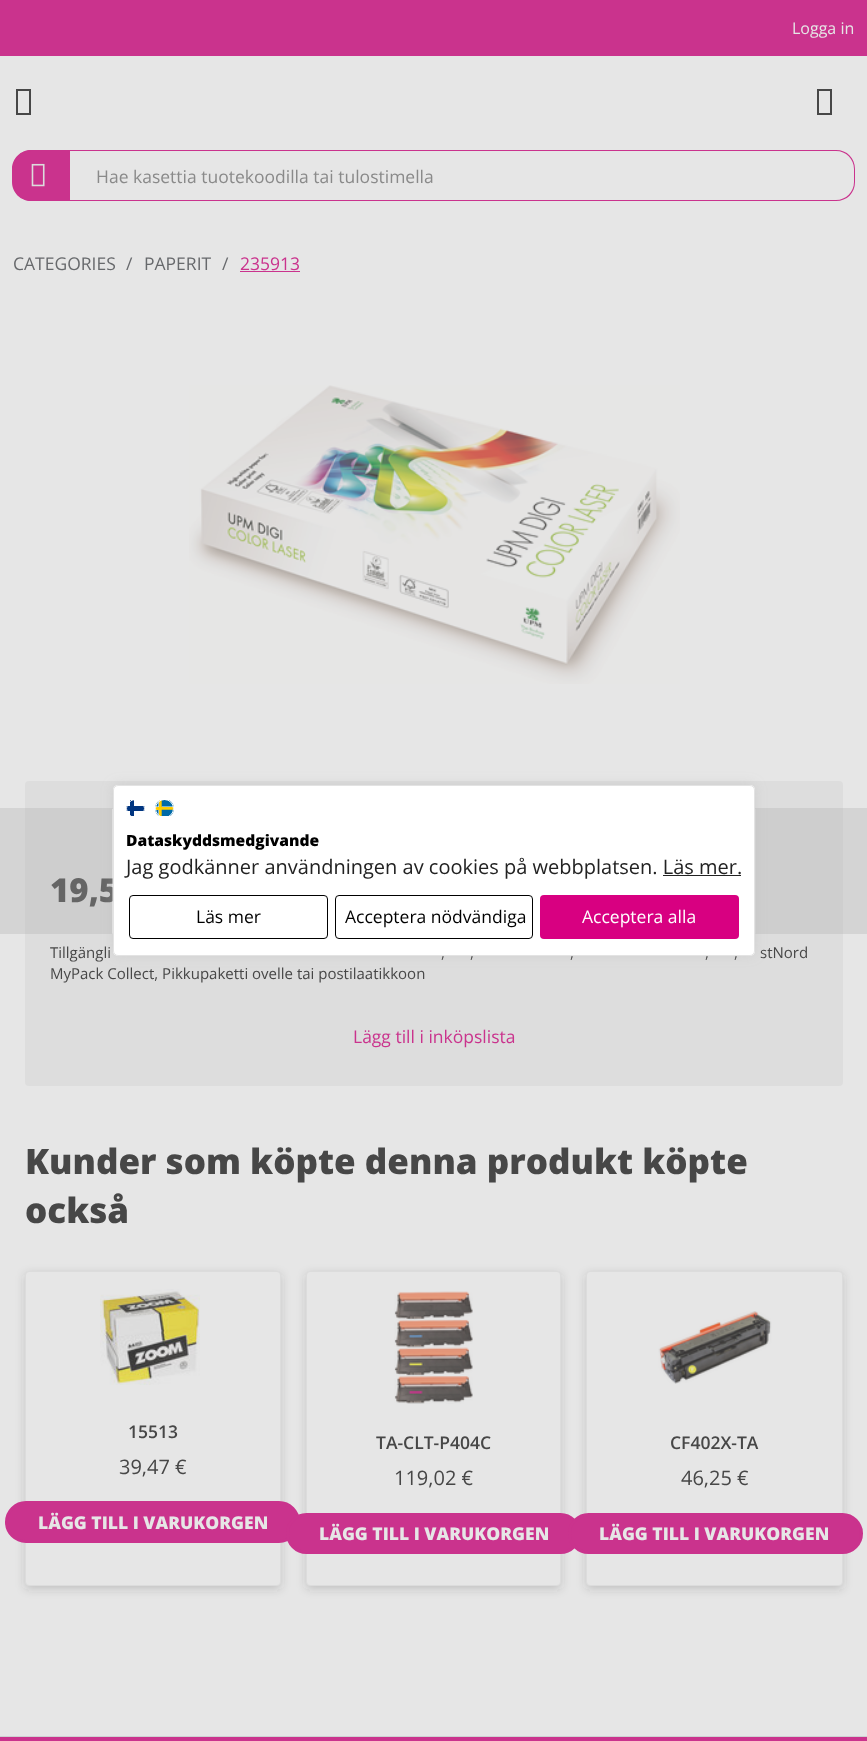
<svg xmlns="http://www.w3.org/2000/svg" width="867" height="1741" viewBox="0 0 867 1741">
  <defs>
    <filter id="blur1" x="-50%" y="-200%" width="200%" height="500%"><feGaussianBlur stdDeviation="5"/></filter>
    <filter id="blur2" x="-50%" y="-200%" width="200%" height="500%"><feGaussianBlur stdDeviation="6"/></filter>
    <clipPath id="clip1"><rect x="126" y="799" width="19" height="19" rx="9.5"/></clipPath>
  </defs>
  <rect width="100%" height="100%" fill="#e6e6e6"/>
  <rect x="0" y="808" width="867" height="126" fill="#d4d4d4"/>
  <rect x="0" y="0" width="867" height="56" fill="#ca338d"/>
  <text x="792" y="34" font-family="Open Sans" font-size="16" fill="#e6e6e6">Logga in</text>
  <path d="M16 115V89H31V115ZM18 113H29V91H18Z" fill="#474747"/>
  <path d="M817 115V89H832V115ZM819 113H830V91H819Z" fill="#474747"/>
  <path d="M32 150H70V201H32C21.5 201 13 192.5 13 182V169C13 158.5 21.5 150 32 150Z" fill="#ca338d"/>
  <path d="M31 150H70V201H31C21 201 12 193 12 182V169C12 158 21 150 31 150ZM31 151H70V200H31C22 200 14 192 14 182V169C14 159 22 151 31 151Z" fill="#ca338d" fill-rule="evenodd"/>
  <image x="31" y="163" width="14" height="24" href="img1.png"/>
  <path d="M70 150H836C847 150 855 158 855 169V182C855 193 847 201 836 201H70ZM70 151H836C846 151 854 159 854 169V182C854 192 846 200 836 200H70Z" fill="#ca338d" fill-rule="evenodd"/>
  <text x="96" y="183" font-family="Open Sans" font-size="17.5" fill="#8a8a8a">Hae kasettia tuotekoodilla tai tulostimella</text>
  <text x="13" y="270" font-family="Open Sans" font-size="17.5" fill="#67696c">CATEGORIES</text>
  <text x="126" y="270" font-family="Open Sans" font-size="17.5" fill="#67696c">/</text>
  <text x="144" y="270" font-family="Open Sans" font-size="17.5" fill="#67696c">PAPERIT</text>
  <text x="222" y="270" font-family="Open Sans" font-size="17.5" fill="#67696c">/</text>
  <text x="240" y="270" font-family="Open Sans" font-size="17.5" fill="#ca338d">235913</text>
  <rect x="240" y="271" width="60" height="1" fill="#ca338d"/>
  <image x="189" y="385" width="491" height="299" href="img2.png"/>
  <rect x="25" y="781" width="818" height="305" rx="4" fill="#dddddd"/>
  <rect x="25" y="808" width="818" height="126" fill="#cecece"/>
  <text x="50" y="902" font-family="Open Sans" font-size="33" font-weight="800" fill="#656565">19,5</text>
  <text x="50" y="958" font-family="Open Sans" font-size="15" fill="#474747">Tillgängli</text>
  <text x="441" y="958" font-family="Open Sans" font-size="15" fill="#474747">,</text>
  <text x="470" y="958" font-family="Open Sans" font-size="15" fill="#474747">,</text>
  <text x="570" y="958" font-family="Open Sans" font-size="15" fill="#474747">,</text>
  <text x="705" y="958" font-family="Open Sans" font-size="15" fill="#474747">,</text>
  <text x="734" y="958" font-family="Open Sans" font-size="15" fill="#474747">,</text>
  <text x="760" y="958" font-family="Open Sans" font-size="15" fill="#474747">stNord</text>
  <text x="50" y="979" font-family="Open Sans" font-size="15" fill="#474747">MyPack Collect, Pikkupaketti ovelle tai postilaatikkoon</text>
  <text x="353" y="1043" font-family="Open Sans" font-size="17.5" fill="#ca338d">Lägg till i inköpslista</text>
  <text x="25" y="1174" font-family="Open Sans" font-size="35" font-weight="800" fill="#474747">Kunder som köpte denna produkt köpte</text>
  <text x="25" y="1223" font-family="Open Sans" font-size="35" font-weight="800" fill="#474747">också</text>
  <rect x="25" y="1274" width="256" height="315" rx="4" fill="#333333" fill-opacity="0.2" filter="url(#blur1)"/>
  <rect x="25.5" y="1271.5" width="255" height="314" rx="3.5" fill="#e6e6e6" stroke="#dcdcdc"/>
  <image x="100" y="1289" width="100" height="96" href="img3.png"/>
  <text x="128" y="1438" font-family="Open Sans" font-size="17.5" font-weight="600" fill="#474747">15513</text>
  <text x="119" y="1474" font-family="Open Sans" font-size="20" fill="#474747">39,47 €</text>
  <rect x="6.5" y="1502.5" width="292" height="39" rx="19.5" fill="#ca338d" stroke="#ca338d" stroke-width="3"/>
  <text x="38" y="1529" font-family="Open Sans" font-size="17.5" font-weight="800" fill="#e6e6e6">LÄGG TILL I VARUKORGEN</text>
  <rect x="306" y="1274" width="255" height="315" rx="4" fill="#333333" fill-opacity="0.2" filter="url(#blur1)"/>
  <rect x="306.5" y="1271.5" width="254" height="314" rx="3.5" fill="#e6e6e6" stroke="#dcdcdc"/>
  <image x="394" y="1291" width="79" height="113" href="img4.png"/>
  <text x="376" y="1449" font-family="Open Sans" font-size="17.5" font-weight="600" fill="#474747">TA-CLT-P404C</text>
  <text x="394" y="1485" font-family="Open Sans" font-size="20" fill="#474747">119,02 €</text>
  <rect x="287.5" y="1514.5" width="292" height="38" rx="19" fill="#ca338d" stroke="#ca338d" stroke-width="3"/>
  <text x="319" y="1540" font-family="Open Sans" font-size="17.5" font-weight="800" fill="#e6e6e6">LÄGG TILL I VARUKORGEN</text>
  <rect x="586" y="1274" width="257" height="315" rx="4" fill="#333333" fill-opacity="0.2" filter="url(#blur1)"/>
  <rect x="586.5" y="1271.5" width="256" height="314" rx="3.5" fill="#e6e6e6" stroke="#dcdcdc"/>
  <image x="658" y="1311" width="114" height="73" href="img5.png"/>
  <text x="670" y="1449" font-family="Open Sans" font-size="17.5" font-weight="600" fill="#474747">CF402X-TA</text>
  <text x="681" y="1485" font-family="Open Sans" font-size="20" fill="#474747">46,25 €</text>
  <rect x="569.5" y="1514.5" width="292" height="38" rx="19" fill="#ca338d" stroke="#ca338d" stroke-width="3"/>
  <text x="599" y="1540" font-family="Open Sans" font-size="17.5" font-weight="800" fill="#e6e6e6">LÄGG TILL I VARUKORGEN</text>
  <rect x="0" y="1737" width="867" height="4" fill="#ca338d"/>
  <rect x="0" y="1736" width="867" height="1" fill="#ced1d1"/>
  <rect x="113" y="784" width="642" height="171" rx="5" fill="#acabab" fill-opacity="0.3" filter="url(#blur2)"/>
  <rect x="113" y="785" width="642" height="171" rx="5" fill="#ffffff"/>
  <image x="112" y="808" width="644" height="126" href="img6.png"/>
  <rect x="113.5" y="785.5" width="641" height="170" rx="4.5" fill="none" stroke="#e3e3e3"/>
  <g clip-path="url(#clip1)">
    <rect x="126" y="806" width="19" height="5" fill="#003580"/>
  </g>
  <rect x="130" y="800" width="4" height="16" fill="#003580"/>
  <circle cx="135.5" cy="808.5" r="9" fill="none" stroke="#ffffff"/>
  <image x="155" y="800" width="19" height="16" href="img7.png"/>
  <circle cx="164.5" cy="808.5" r="9" fill="none" stroke="#ffffff"/>
  <text x="126" y="846" font-family="Open Sans" font-size="15.6" font-weight="800" fill="#000000">Dataskyddsmedgivande</text>
  <text x="126" y="874" font-family="Open Sans" font-size="20" fill="#222222">Jag godkänner användningen av cookies på webbplatsen. Läs mer.</text>
  <rect x="663" y="875" width="78" height="1" fill="#222222"/>
  <rect x="129.5" y="895.5" width="198" height="43" rx="3.5" fill="none" stroke="#000000"/>
  <text x="196" y="923" font-family="Open Sans" font-size="17.5" fill="#000000">Läs mer</text>
  <rect x="335.5" y="895.5" width="197" height="43" rx="3.5" fill="none" stroke="#000000"/>
  <text x="345" y="923" font-family="Open Sans" font-size="17.5" fill="#000000">Acceptera nödvändiga</text>
  <rect x="540" y="895" width="199" height="44" rx="4" fill="#d80081"/>
  <text x="582" y="923" font-family="Open Sans" font-size="17.5" fill="#ffffff">Acceptera alla</text>
</svg>
